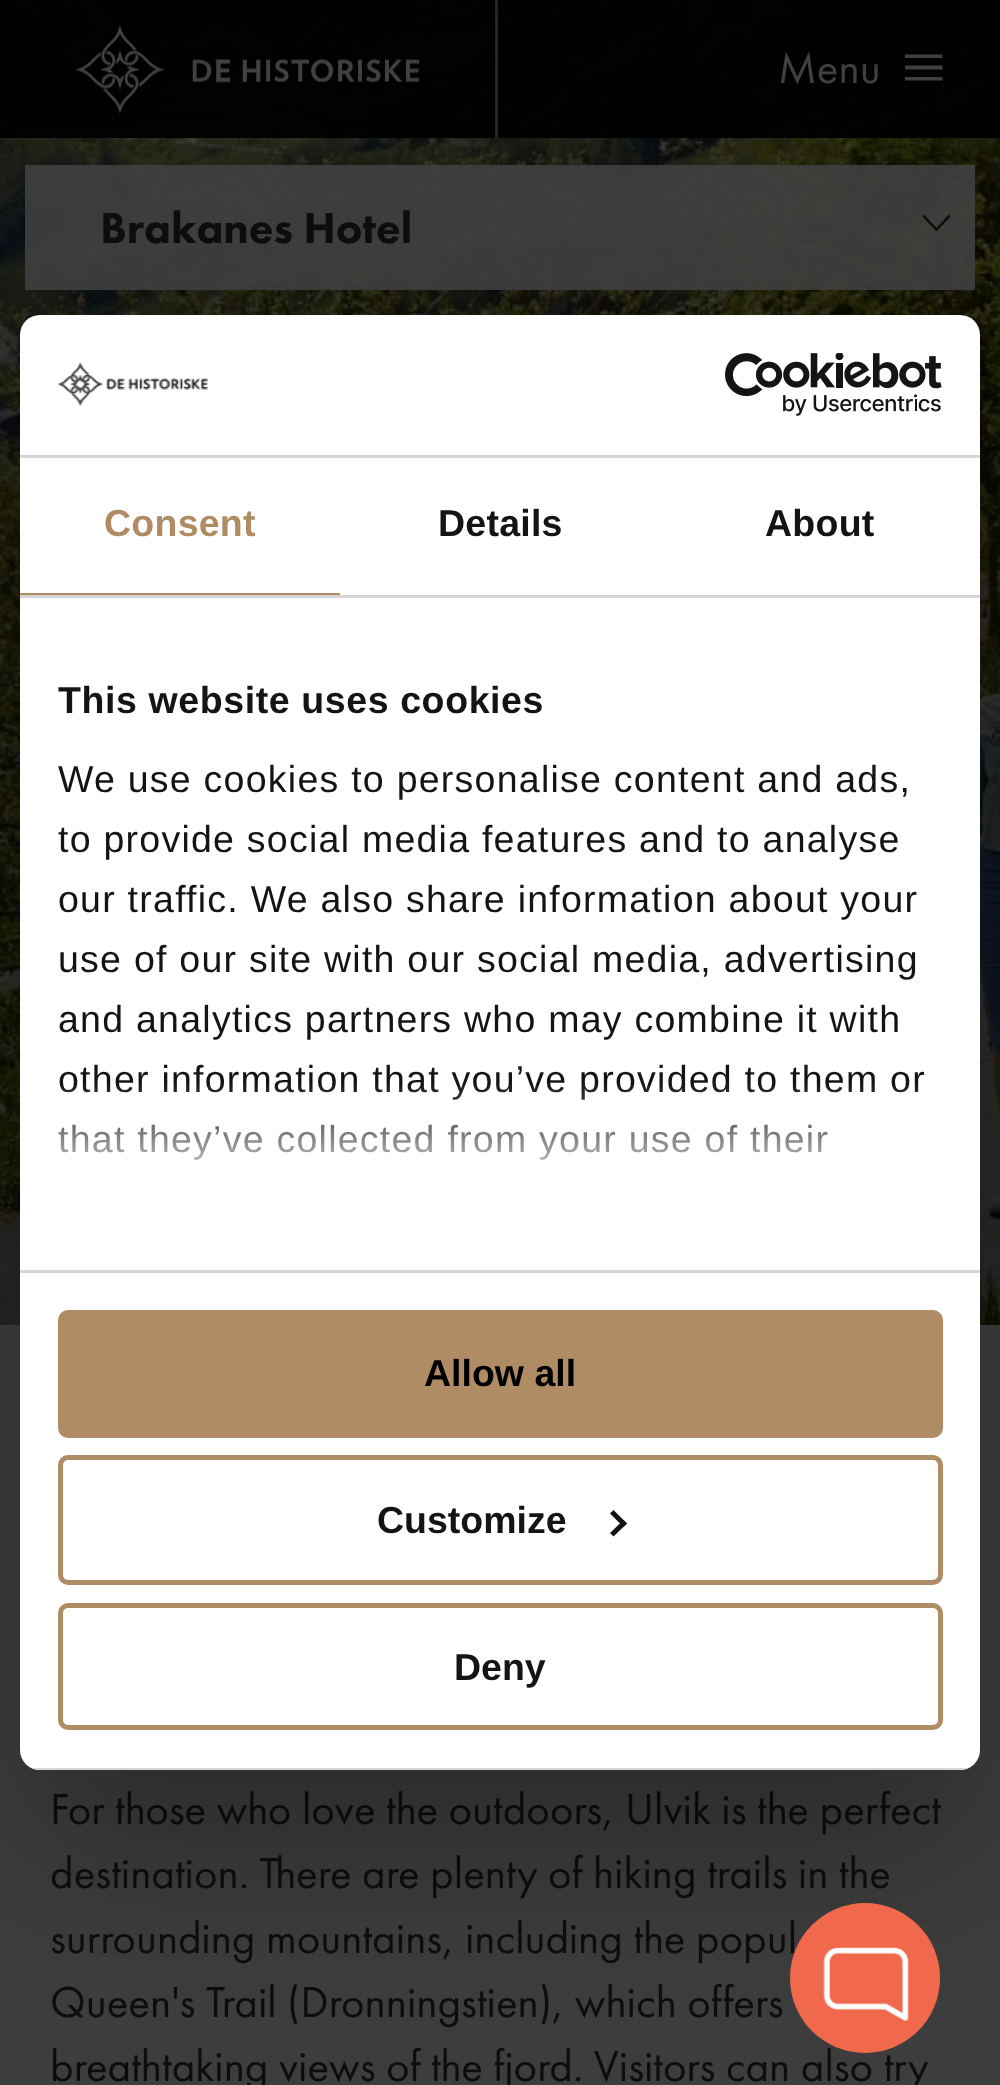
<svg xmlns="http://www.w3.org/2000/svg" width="1000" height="2085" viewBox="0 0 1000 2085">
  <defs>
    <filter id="blur1" x="-50%" y="-200%" width="200%" height="500%"><feGaussianBlur stdDeviation="85"/></filter>
    <linearGradient id="g1" gradientUnits="userSpaceOnUse" x1="484" y1="1270" x2="484" y2="1082"><stop offset="0" stop-color="#ffffff"/><stop offset="0.5" stop-color="#ffffff" stop-opacity="0.8"/><stop offset="1" stop-color="#ffffff" stop-opacity="0"/></linearGradient>
    <clipPath id="clip1"><rect x="20" y="315" width="960" height="1455" rx="20"/></clipPath>
  </defs>
  <rect width="100%" height="100%" fill="#3d3d3d"/>
  <image x="0" y="0" width="1000" height="1325" href="img2.png"/>
  <rect x="0" y="0" width="1000" height="138" fill="#000000" fill-opacity="0.95"/>
  <rect x="495" y="0" width="3" height="138" fill="#2c2319"/>
  <image x="75" y="25" width="345" height="89" href="img1.png"/>
  <text x="778" y="83" font-family="Futura PT" font-size="45" fill="#404040">Menu</text>
  <path d="M905 69.5V65.5H942.5V69.5ZM905 58V54.5H942.5V58ZM905 80.5V77H942.5V80.5Z" fill="#404040"/>
  <rect x="25" y="165" width="950" height="125" fill="#404040" fill-opacity="0.9"/>
  <text x="100" y="243" font-family="Futura PT" font-size="45" font-weight="900" fill="#0d0d0d">Brakanes Hotel</text>
  <path d="M949 214.5L950.5 216.5L936.5 231.5L922.5 216.5L924 214.5L936.5 228Z" fill="#0d0d0d"/>
  <text x="50" y="1824" font-family="Futura PT" font-size="45" fill="#0d0d0d">For those who love the outdoors, Ulvik is the perfect</text>
  <text x="50" y="1888" font-family="Futura PT" font-size="45" fill="#0d0d0d">destination. There are plenty of hiking trails in the</text>
  <text x="50" y="1953" font-family="Futura PT" font-size="45" fill="#0d0d0d">surrounding mountains, including the popul</text>
  <text x="50" y="2017" font-family="Futura PT" font-size="45" fill="#0d0d0d">Queen's Trail (Dronningstien), which offers</text>
  <text x="50" y="2081" font-family="Futura PT" font-size="45" fill="#0d0d0d">breathtaking views of the fjord. Visitors can also try</text>
  <rect x="20" y="395" width="960" height="1455" rx="20" fill="#000000" fill-opacity="0.3" filter="url(#blur1)"/>
  <rect x="20" y="315" width="960" height="1455" rx="20" fill="#ffffff"/>
  <rect x="20" y="455" width="960" height="3" fill="#d6d6d6"/>
  <image x="57" y="362" width="151" height="45" href="img3.png"/>
  <image x="725" y="353" width="217" height="63" href="img4.png"/>
  <rect x="20" y="595" width="960" height="3" fill="#d6d6d6"/>
  <rect x="20" y="593" width="320" height="2" fill="#af8c64"/>
  <text x="104" y="536" font-family="Liberation Sans" font-size="37.5" font-weight="bold" letter-spacing="0.25" fill="#af8c64">Consent</text>
  <text x="438" y="536" font-family="Liberation Sans" font-size="37.5" font-weight="bold" letter-spacing="0.25" fill="#141414">Details</text>
  <text x="765" y="536" font-family="Liberation Sans" font-size="37.5" font-weight="bold" letter-spacing="0.25" fill="#141414">About</text>
  <rect x="20" y="1270" width="960" height="3" fill="#d6d6d6"/>
  <text x="58" y="713" font-family="Liberation Sans" font-size="37.5" font-weight="bold" letter-spacing="0.6" fill="#141414">This website uses cookies</text>
  <text x="58" y="792" font-family="Liberation Sans" font-size="37.5" letter-spacing="1.25" fill="#141414">We use cookies to personalise content and ads,</text>
  <text x="58" y="852" font-family="Liberation Sans" font-size="37.5" letter-spacing="1.25" fill="#141414">to provide social media features and to analyse</text>
  <text x="58" y="912" font-family="Liberation Sans" font-size="37.5" letter-spacing="1.25" fill="#141414">our traffic. We also share information about your</text>
  <text x="58" y="972" font-family="Liberation Sans" font-size="37.5" letter-spacing="1.25" fill="#141414">use of our site with our social media, advertising</text>
  <text x="58" y="1032" font-family="Liberation Sans" font-size="37.5" letter-spacing="1.25" fill="#141414">and analytics partners who may combine it with</text>
  <text x="58" y="1092" font-family="Liberation Sans" font-size="37.5" letter-spacing="1.25" fill="#141414">other information that you’ve provided to them or</text>
  <text x="58" y="1152" font-family="Liberation Sans" font-size="37.5" letter-spacing="1.25" fill="#141414">that they’ve collected from your use of their</text>
  <rect x="58" y="1085" width="860" height="75" fill="url(#g1)"/>
  <g clip-path="url(#clip1)">
    <rect x="31" y="1768" width="938" height="2" fill="#d6d6d6"/>
  </g>
  <rect x="60.5" y="1312.5" width="880" height="123" rx="7.5" fill="#af8c64" stroke="#af8c64" stroke-width="5"/>
  <text x="424" y="1386" font-family="Liberation Sans" font-size="37.5" font-weight="bold" fill="#000000">Allow all</text>
  <rect x="60.5" y="1457.5" width="880" height="125" rx="7.5" fill="none" stroke="#af8c64" stroke-width="5"/>
  <text x="377" y="1533" font-family="Liberation Sans" font-size="37.5" font-weight="bold" fill="#141414">Customize</text>
  <path d="M613.5 1510L627 1523.5L623.5 1527L610 1513.5Z" fill="#141414"/>
  <path d="M623.5 1520L627 1523.5L613.5 1536.5L610 1533Z" fill="#141414"/>
  <rect x="60.5" y="1605.5" width="880" height="122" rx="7.5" fill="none" stroke="#af8c64" stroke-width="5"/>
  <text x="454" y="1680" font-family="Liberation Sans" font-size="37.5" font-weight="bold" fill="#141414">Deny</text>
  <circle cx="865" cy="1978" r="75" fill="#f1694c"/>
  <image x="823" y="1947" width="86" height="74" href="img5.png"/>
</svg>
